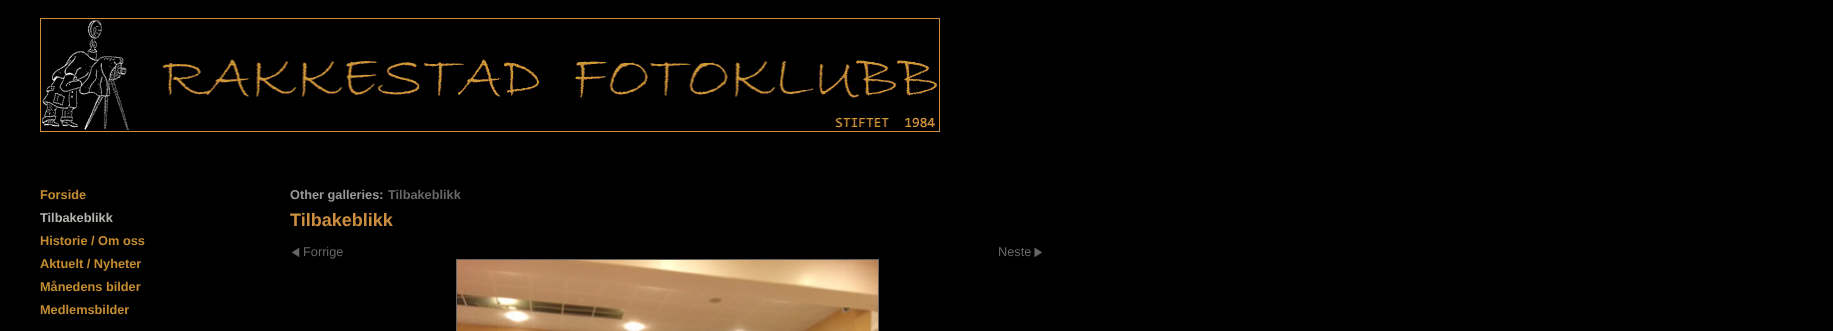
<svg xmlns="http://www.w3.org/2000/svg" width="1833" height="331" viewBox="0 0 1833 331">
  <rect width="100%" height="100%" fill="#000000"/>
  <rect x="40.5" y="18.5" width="899" height="113" fill="none" stroke="#cb8d3e"/>
  <image x="42" y="20" width="896" height="110" href="img1.png"/>
  <text x="40" y="199" font-family="Liberation Sans" font-size="12.75" font-weight="bold" fill="#c48c31">Forside</text>
  <text x="40" y="222" font-family="Liberation Sans" font-size="12.75" font-weight="bold" fill="#b5b4b1">Tilbakeblikk</text>
  <text x="40" y="245" font-family="Liberation Sans" font-size="12.75" font-weight="bold" fill="#c48c31">Historie / Om oss</text>
  <text x="40" y="268" font-family="Liberation Sans" font-size="12.75" font-weight="bold" fill="#c48c31">Aktuelt / Nyheter</text>
  <text x="40" y="291" font-family="Liberation Sans" font-size="12.75" font-weight="bold" fill="#c48c31">Månedens bilder</text>
  <text x="40" y="314" font-family="Liberation Sans" font-size="12.75" font-weight="bold" fill="#c48c31">Medlemsbilder</text>
  <text x="290" y="199" font-family="Liberation Sans" font-size="12.75" font-weight="bold" fill="#999999">Other galleries:</text>
  <text x="388" y="199" font-family="Liberation Sans" font-size="12.75" font-weight="bold" fill="#666666">Tilbakeblikk</text>
  <text x="290" y="226" font-family="Liberation Sans" font-size="18" font-weight="bold" fill="#cb8d3e">Tilbakeblikk</text>
  <image x="291" y="247" width="9" height="10" href="img2.png"/>
  <text x="303" y="256" font-family="Liberation Sans" font-size="12.75" fill="#666666">Forrige</text>
  <text x="998" y="256" font-family="Liberation Sans" font-size="12.75" fill="#666666">Neste</text>
  <image x="1034" y="247" width="8" height="10" href="img3.png"/>
  <rect x="456.5" y="259.5" width="422" height="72" fill="none" stroke="#666666"/>
  <image x="457" y="260" width="421" height="71" href="img4.png"/>
</svg>
